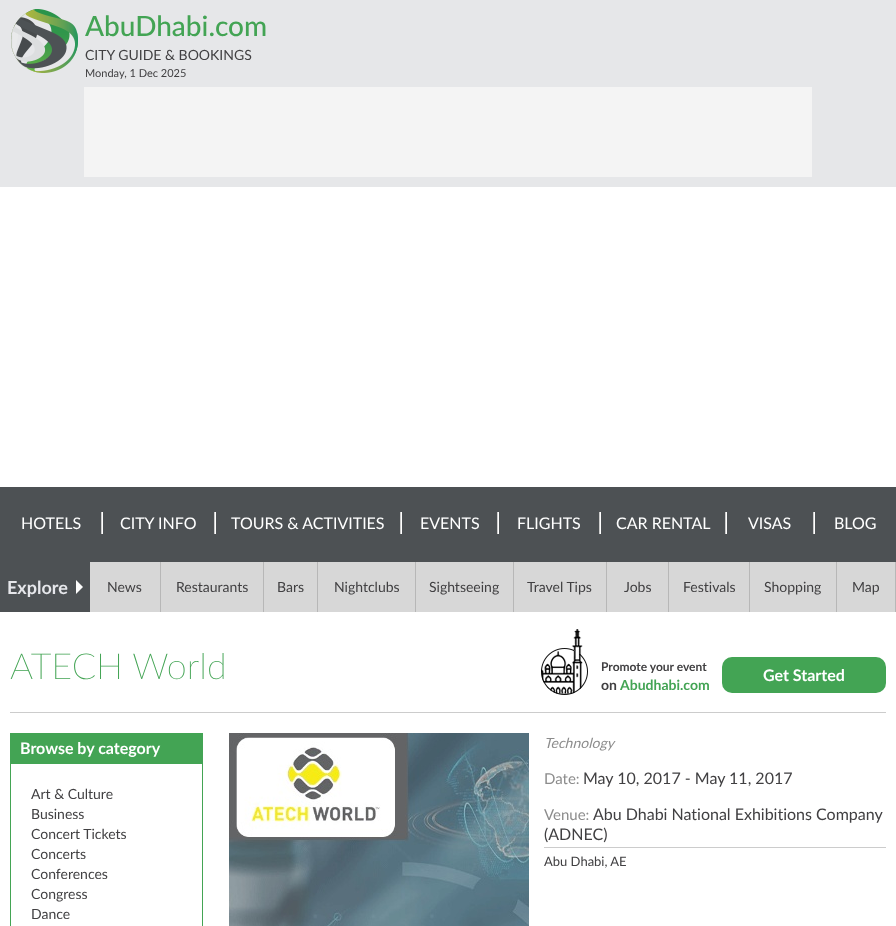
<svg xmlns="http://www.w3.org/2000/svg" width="896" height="926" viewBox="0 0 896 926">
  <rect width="100%" height="100%" fill="#ffffff"/>
  <rect x="0" y="0" width="896" height="187" fill="#e6e7e9"/>
  <image x="11" y="9" width="67" height="64" href="img1.png"/>
  <text x="85" y="36" font-family="Lato" font-size="28" font-weight="500" fill="#43a454">AbuDhabi.com</text>
  <text x="85" y="60" font-family="Lato" font-size="14" fill="#414042">CITY GUIDE &amp; BOOKINGS</text>
  <text x="85" y="77" font-family="Lato" font-size="11" fill="#414042">Monday, 1 Dec 2025</text>
  <rect x="84" y="87" width="728" height="90" fill="#f4f4f4"/>
  <rect x="0" y="487" width="896" height="75" fill="#4d5154"/>
  <rect x="101" y="512" width="1" height="22" fill="#cccccc"/>
  <text x="21" y="529" font-family="Lato" font-size="16" fill="#ffffff">HOTELS</text>
  <rect x="214" y="512" width="1" height="22" fill="#cccccc"/>
  <rect x="102" y="512" width="1" height="22" fill="#ffffff"/>
  <text x="120" y="529" font-family="Lato" font-size="16" fill="#ffffff">CITY INFO</text>
  <rect x="400" y="512" width="1" height="22" fill="#cccccc"/>
  <rect x="215" y="512" width="1" height="22" fill="#ffffff"/>
  <text x="231" y="529" font-family="Lato" font-size="16" fill="#ffffff">TOURS &amp; ACTIVITIES</text>
  <rect x="497" y="512" width="1" height="22" fill="#cccccc"/>
  <rect x="401" y="512" width="1" height="22" fill="#ffffff"/>
  <text x="420" y="529" font-family="Lato" font-size="16" fill="#ffffff">EVENTS</text>
  <rect x="599" y="512" width="1" height="22" fill="#cccccc"/>
  <rect x="498" y="512" width="1" height="22" fill="#ffffff"/>
  <text x="517" y="529" font-family="Lato" font-size="16" fill="#ffffff">FLIGHTS</text>
  <rect x="725" y="512" width="1" height="22" fill="#cccccc"/>
  <rect x="600" y="512" width="1" height="22" fill="#ffffff"/>
  <text x="616" y="529" font-family="Lato" font-size="16" fill="#ffffff">CAR RENTAL</text>
  <rect x="813" y="512" width="1" height="22" fill="#cccccc"/>
  <rect x="726" y="512" width="1" height="22" fill="#ffffff"/>
  <text x="748" y="529" font-family="Lato" font-size="16" fill="#ffffff">VISAS</text>
  <rect x="814" y="512" width="1" height="22" fill="#ffffff"/>
  <text x="834" y="529" font-family="Lato" font-size="16" fill="#ffffff">BLOG</text>
  <rect x="90" y="562" width="805" height="50" fill="#d7d7d7"/>
  <rect x="895" y="562" width="1" height="50" fill="#b7b7b7"/>
  <rect x="0" y="562" width="90" height="50" fill="#4d5154"/>
  <text x="7" y="594" font-family="Lato" font-size="18" font-weight="bold" fill="#e6e7eb">Explore</text>
  <image x="76" y="580" width="7" height="14" href="img2.png"/>
  <rect x="160" y="562" width="1" height="50" fill="#b7b7b7"/>
  <text x="107" y="592" font-family="Lato" font-size="14" fill="#414042">News</text>
  <rect x="263" y="562" width="1" height="50" fill="#b7b7b7"/>
  <text x="176" y="592" font-family="Lato" font-size="14" fill="#414042">Restaurants</text>
  <rect x="317" y="562" width="1" height="50" fill="#b7b7b7"/>
  <text x="277" y="592" font-family="Lato" font-size="14" fill="#414042">Bars</text>
  <rect x="415" y="562" width="1" height="50" fill="#b7b7b7"/>
  <text x="334" y="592" font-family="Lato" font-size="14" fill="#414042">Nightclubs</text>
  <rect x="513" y="562" width="1" height="50" fill="#b7b7b7"/>
  <text x="429" y="592" font-family="Lato" font-size="14" fill="#414042">Sightseeing</text>
  <rect x="606" y="562" width="1" height="50" fill="#b7b7b7"/>
  <text x="527" y="592" font-family="Lato" font-size="14" fill="#414042">Travel Tips</text>
  <rect x="668" y="562" width="1" height="50" fill="#b7b7b7"/>
  <text x="624" y="592" font-family="Lato" font-size="14" fill="#414042">Jobs</text>
  <rect x="749" y="562" width="1" height="50" fill="#b7b7b7"/>
  <text x="683" y="592" font-family="Lato" font-size="14" fill="#414042">Festivals</text>
  <rect x="836" y="562" width="1" height="50" fill="#b7b7b7"/>
  <text x="764" y="592" font-family="Lato" font-size="14" fill="#414042">Shopping</text>
  <text x="852" y="592" font-family="Lato" font-size="14" fill="#414042">Map</text>
  <text x="10" y="679" font-family="Lato" font-size="36" font-weight="100" fill="#43a454">ATECH World</text>
  <image x="541" y="629" width="47" height="66" href="img3.png"/>
  <text x="601" y="671" font-family="Lato" font-size="12" font-weight="bold" fill="#414042">Promote your event</text>
  <text x="601" y="690" font-family="Lato" font-size="14" font-weight="bold" fill="#414042">on</text>
  <text x="620" y="690" font-family="Lato" font-size="14" font-weight="bold" fill="#43a454">Abudhabi.com</text>
  <rect x="722" y="657" width="164" height="36" rx="10" fill="#43a454"/>
  <text x="763" y="681" font-family="Lato" font-size="16" font-weight="bold" fill="#ffffff">Get Started</text>
  <rect x="10" y="712" width="876" height="1" fill="#cccccc"/>
  <rect x="10" y="733" width="193" height="30" fill="#43a454"/>
  <text x="20" y="754" font-family="Lato" font-size="16" font-weight="bold" fill="#ffffff">Browse by category</text>
  <rect x="10.5" y="763.5" width="192" height="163" fill="none" stroke="#43a454"/>
  <text x="31" y="799" font-family="Lato" font-size="14" fill="#414042">Art &amp; Culture</text>
  <text x="31" y="819" font-family="Lato" font-size="14" fill="#414042">Business</text>
  <text x="31" y="839" font-family="Lato" font-size="14" fill="#414042">Concert Tickets</text>
  <text x="31" y="859" font-family="Lato" font-size="14" fill="#414042">Concerts</text>
  <text x="31" y="879" font-family="Lato" font-size="14" fill="#414042">Conferences</text>
  <text x="31" y="899" font-family="Lato" font-size="14" fill="#414042">Congress</text>
  <text x="31" y="919" font-family="Lato" font-size="14" fill="#414042">Dance</text>
  <image x="229" y="733" width="300" height="193" href="img4.png"/>
  <text x="544" y="748" font-family="Lato" font-size="14" font-style="italic" fill="#8c8c8c">Technology</text>
  <text x="544" y="784" font-family="Lato" font-size="15" fill="#8c8c8c">Date:</text>
  <text x="583" y="784" font-family="Lato" font-size="16" fill="#414042">May 10, 2017 - May 11, 2017</text>
  <rect x="544" y="847" width="342" height="1" fill="#cccccc"/>
  <text x="544" y="820" font-family="Lato" font-size="15" fill="#8c8c8c">Venue:</text>
  <text x="593" y="820" font-family="Lato" font-size="16" fill="#414042">Abu Dhabi National Exhibitions Company</text>
  <text x="544" y="840" font-family="Lato" font-size="16" fill="#414042">(ADNEC)</text>
  <text x="544" y="866" font-family="Lato" font-size="13" fill="#414042">Abu Dhabi, AE</text>
</svg>
